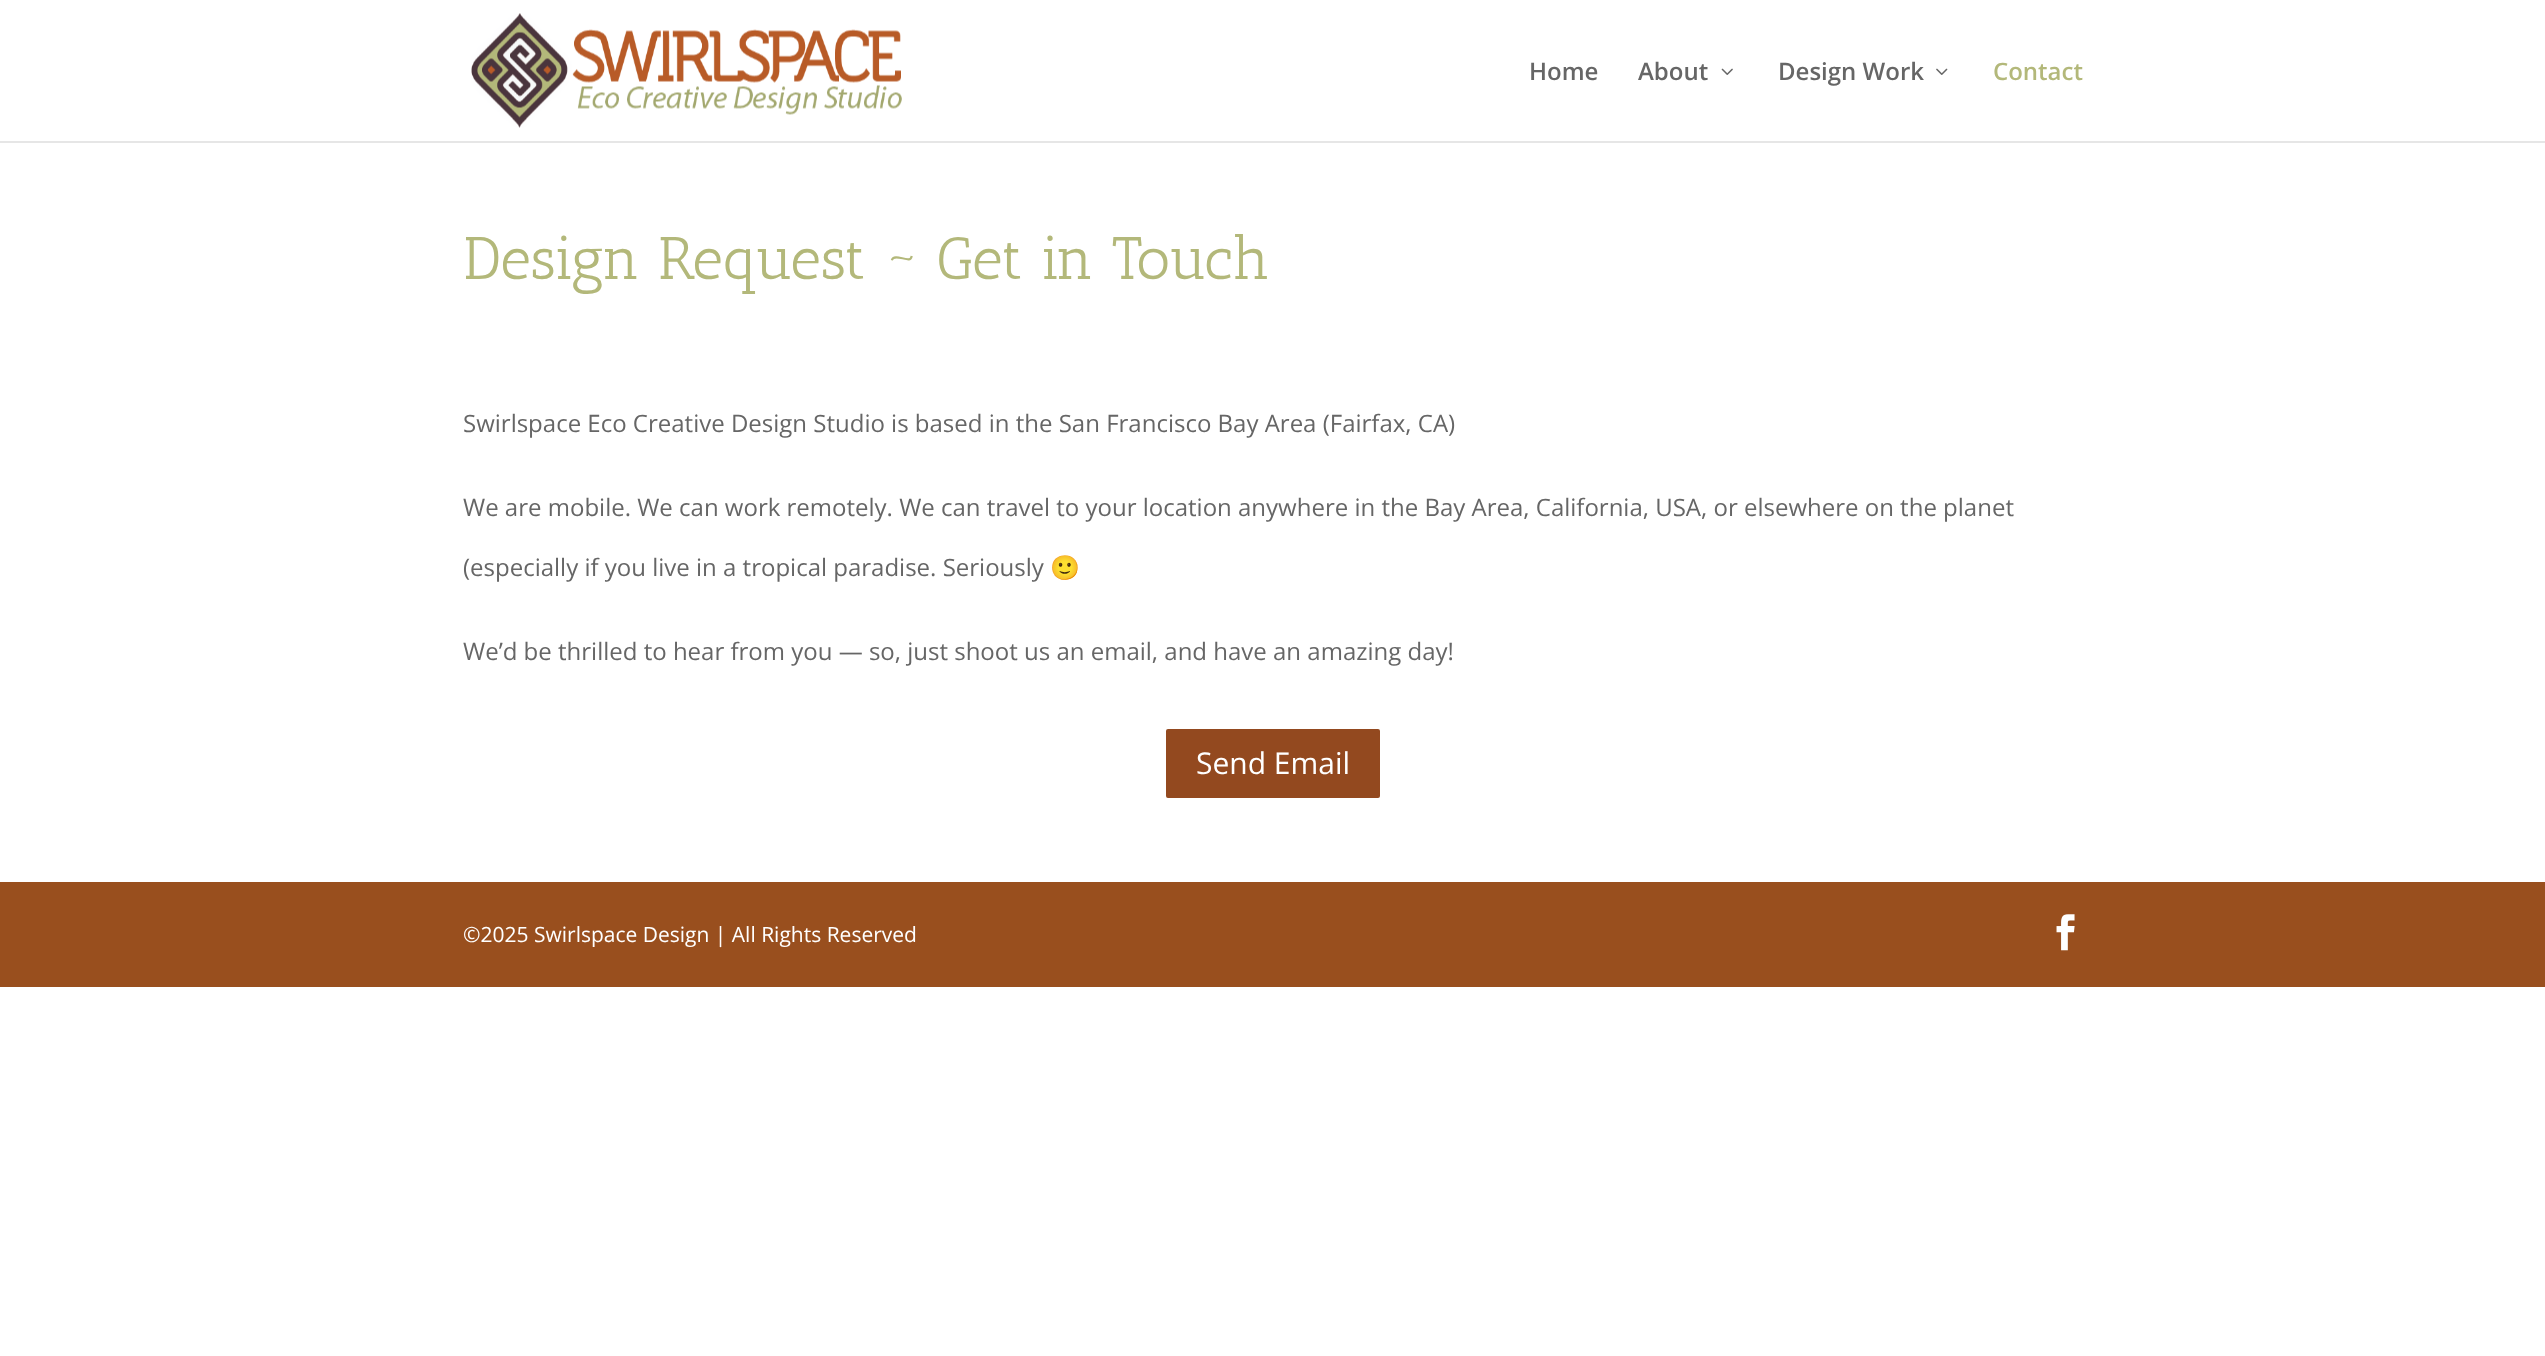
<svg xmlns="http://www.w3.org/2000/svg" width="2545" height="1356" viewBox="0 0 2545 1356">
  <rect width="100%" height="100%" fill="#ffffff"/>
  <path d="M0 141V143H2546V2V141Z" fill="#e6e6e6"/>
  <image x="471" y="13" width="431" height="115" href="img1.png"/>
  <text x="1529" y="80" font-family="Open Sans" font-size="24" font-weight="600" fill="#666666">Home</text>
  <text x="1638" y="80" font-family="Open Sans" font-size="24" font-weight="600" fill="#666666">About</text>
  <image x="1721" y="68" width="12" height="7" href="img2.png"/>
  <text x="1778" y="80" font-family="Open Sans" font-size="24" font-weight="600" fill="#666666">Design Work</text>
  <image x="1936" y="68" width="12" height="7" href="img3.png"/>
  <text x="1993" y="80" font-family="Open Sans" font-size="24" font-weight="600" fill="#b3b87a">Contact</text>
  <text x="463" y="279" font-family="Antic Slab" font-size="60" fill="#b3b87a">Design Request ~ Get in Touch</text>
  <text x="463" y="432" font-family="Open Sans" font-size="24" fill="#666666">Swirlspace Eco Creative Design Studio is based in the San Francisco Bay Area (Fairfax, CA)</text>
  <text x="463" y="516" font-family="Open Sans" font-size="24" fill="#666666">We are mobile. We can work remotely. We can travel to your location anywhere in the Bay Area, California, USA, or elsewhere on the planet</text>
  <text x="463" y="576" font-family="Open Sans" font-size="24" fill="#666666">(especially if you live in a tropical paradise. Seriously</text>
  <text x="1050" y="576" font-family="Noto Color Emoji" font-size="24" fill="#666666">🙂</text>
  <text x="463" y="660" font-family="Open Sans" font-size="24" fill="#666666">We’d be thrilled to hear from you — so, just shoot us an email, and have an amazing day!</text>
  <rect x="1164.5" y="727.5" width="217" height="72" rx="3.5" fill="#93491f" stroke="#ffffff" stroke-width="3"/>
  <text x="1196" y="774" font-family="Open Sans" font-size="30" fill="#ffffff">Send Email</text>
  <rect x="0" y="882" width="2545" height="105" fill="#994f1e"/>
  <text x="463" y="942" font-family="Open Sans" font-size="21" fill="#ffffff">©2025 Swirlspace Design | All Rights Reserved</text>
  <image x="2056" y="914" width="19" height="37" href="img4.png"/>
</svg>
